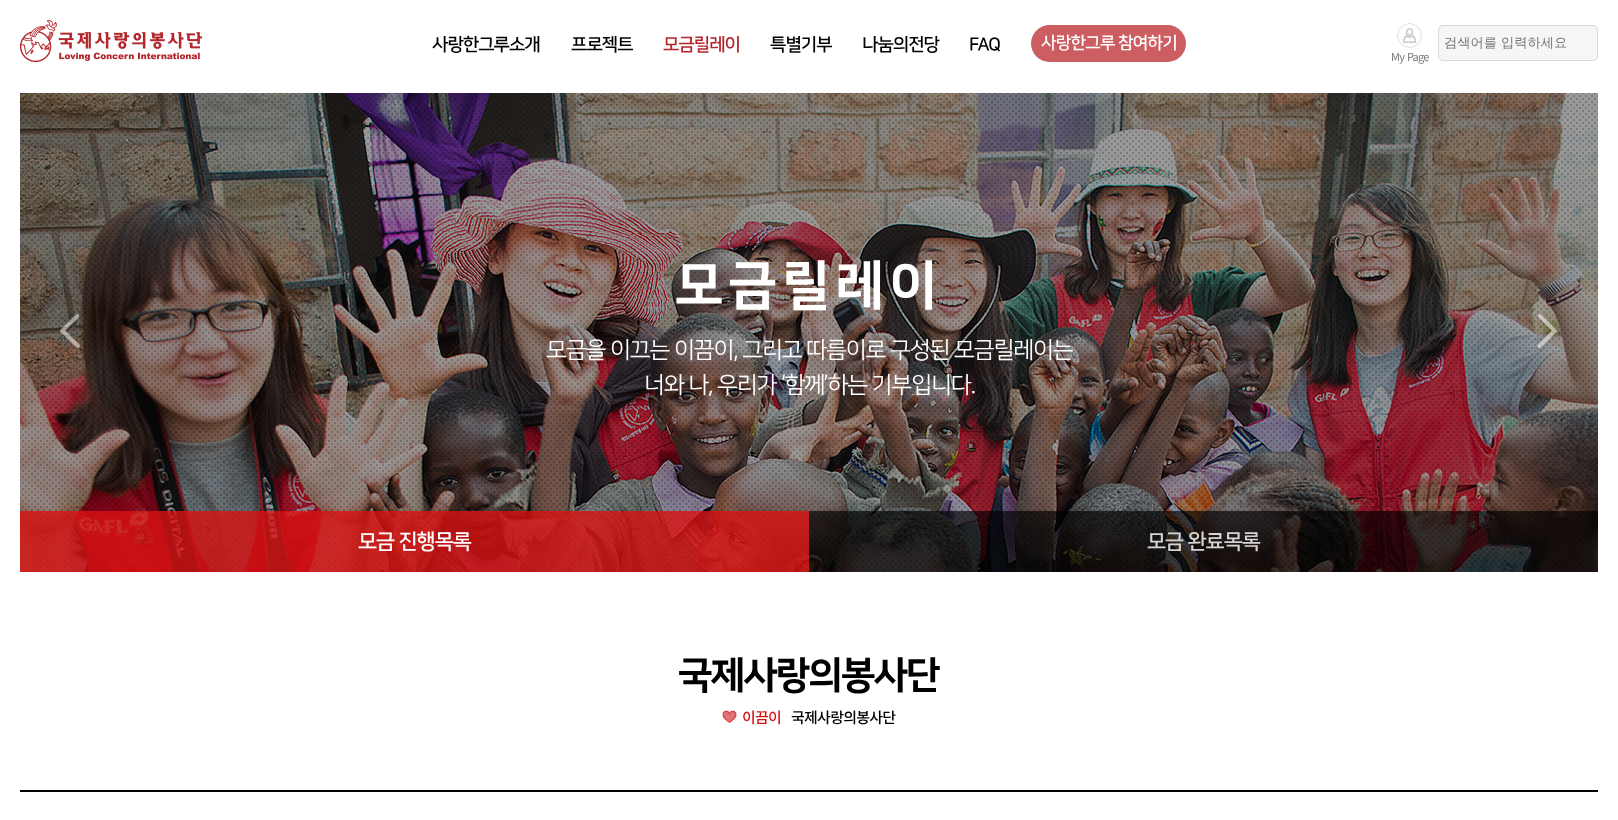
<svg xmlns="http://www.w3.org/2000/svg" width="1618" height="820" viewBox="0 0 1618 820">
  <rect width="100%" height="100%" fill="#ffffff"/>
  <image x="20" y="20" width="182" height="42" href="img1.png"/>
  <text x="432" y="50" font-family="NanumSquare" font-size="18" font-weight="bold" letter-spacing="-1" fill="#000000">사랑한그루소개</text>
  <text x="571" y="50" font-family="NanumSquare" font-size="18" font-weight="bold" letter-spacing="-1" fill="#000000">프로젝트</text>
  <text x="663" y="50" font-family="NanumSquare" font-size="18" font-weight="bold" letter-spacing="-1" fill="#b3262b">모금릴레이</text>
  <text x="770" y="50" font-family="NanumSquare" font-size="18" font-weight="bold" letter-spacing="-1" fill="#000000">특별기부</text>
  <text x="862" y="50" font-family="NanumSquare" font-size="18" font-weight="bold" letter-spacing="-1" fill="#000000">나눔의전당</text>
  <text x="969" y="50" font-family="NanumSquare" font-size="18" font-weight="bold" letter-spacing="-1" fill="#000000">FAQ</text>
  <rect x="1031" y="25" width="155" height="37" rx="18.5" fill="#cc5e62"/>
  <text x="1041" y="48" font-family="NanumSquare" font-size="17" font-weight="bold" letter-spacing="-0.75" fill="#ffffff">사랑한그루 참여하기</text>
  <rect x="1438.5" y="25.5" width="159" height="35" rx="4.5" fill="#f6f6f6" stroke="#d7d7d7"/>
  <text x="1444" y="47" font-family="WenQuanYi Zen Hei" font-size="13.25" font-weight="500" fill="#757575">검색어를 입력하세요</text>
  <image x="1397" y="23" width="25" height="25" href="img2.png"/>
  <text x="1391" y="61" word-spacing="1" font-family="Noto Sans KR" font-size="11" letter-spacing="-0.75" fill="#7b7b7b">My Page</text>
  <image x="20" y="93" width="1578" height="479" href="img3.png"/>
  <text x="675" y="302" font-family="NanumSquare" font-size="53" font-weight="800" letter-spacing="5.25" fill="#ffffff">모금릴레이</text>
  <text x="546" y="357" font-family="NanumSquare" font-size="23" letter-spacing="-1.15" fill="#ffffff">모금을 이끄는 이끔이, 그리고 따름이로 구성된 모금릴레이는</text>
  <text x="644" y="392" font-family="NanumSquare" font-size="23" letter-spacing="-1.15" fill="#ffffff">너와 나, 우리가 ‘함께’하는 기부입니다.</text>
  <image x="58" y="313" width="24" height="37" href="img4.png"/>
  <image x="1535" y="311" width="25" height="40" href="img5.png"/>
  <rect x="20" y="511" width="789" height="61" fill="#d91111" fill-opacity="0.8"/>
  <text x="358" y="548" font-family="NanumSquare" font-size="21" font-weight="bold" letter-spacing="-1" fill="#ffffff">모금 진행목록</text>
  <rect x="809" y="511" width="789" height="61" fill="#000000" fill-opacity="0.65"/>
  <text x="1147" y="548" font-family="NanumSquare" font-size="21" font-weight="bold" letter-spacing="-1" fill="#d4d4d4">모금 완료목록</text>
  <rect x="20" y="790" width="1578" height="2" fill="#000000"/>
  <text x="678" y="687" font-family="NanumSquare" font-size="38" font-weight="800" letter-spacing="-2" fill="#000000">국제사랑의봉사단</text>
  <image x="722" y="710" width="15" height="13" href="img6.png"/>
  <text x="742" y="723" font-family="Noto Sans KR" font-size="15" font-weight="500" letter-spacing="-0.75" fill="#d91212">이끔이</text>
  <text x="791" y="723" font-family="Noto Sans KR" font-size="15" font-weight="500" letter-spacing="-0.75" fill="#000000">국제사랑의봉사단</text>
</svg>
